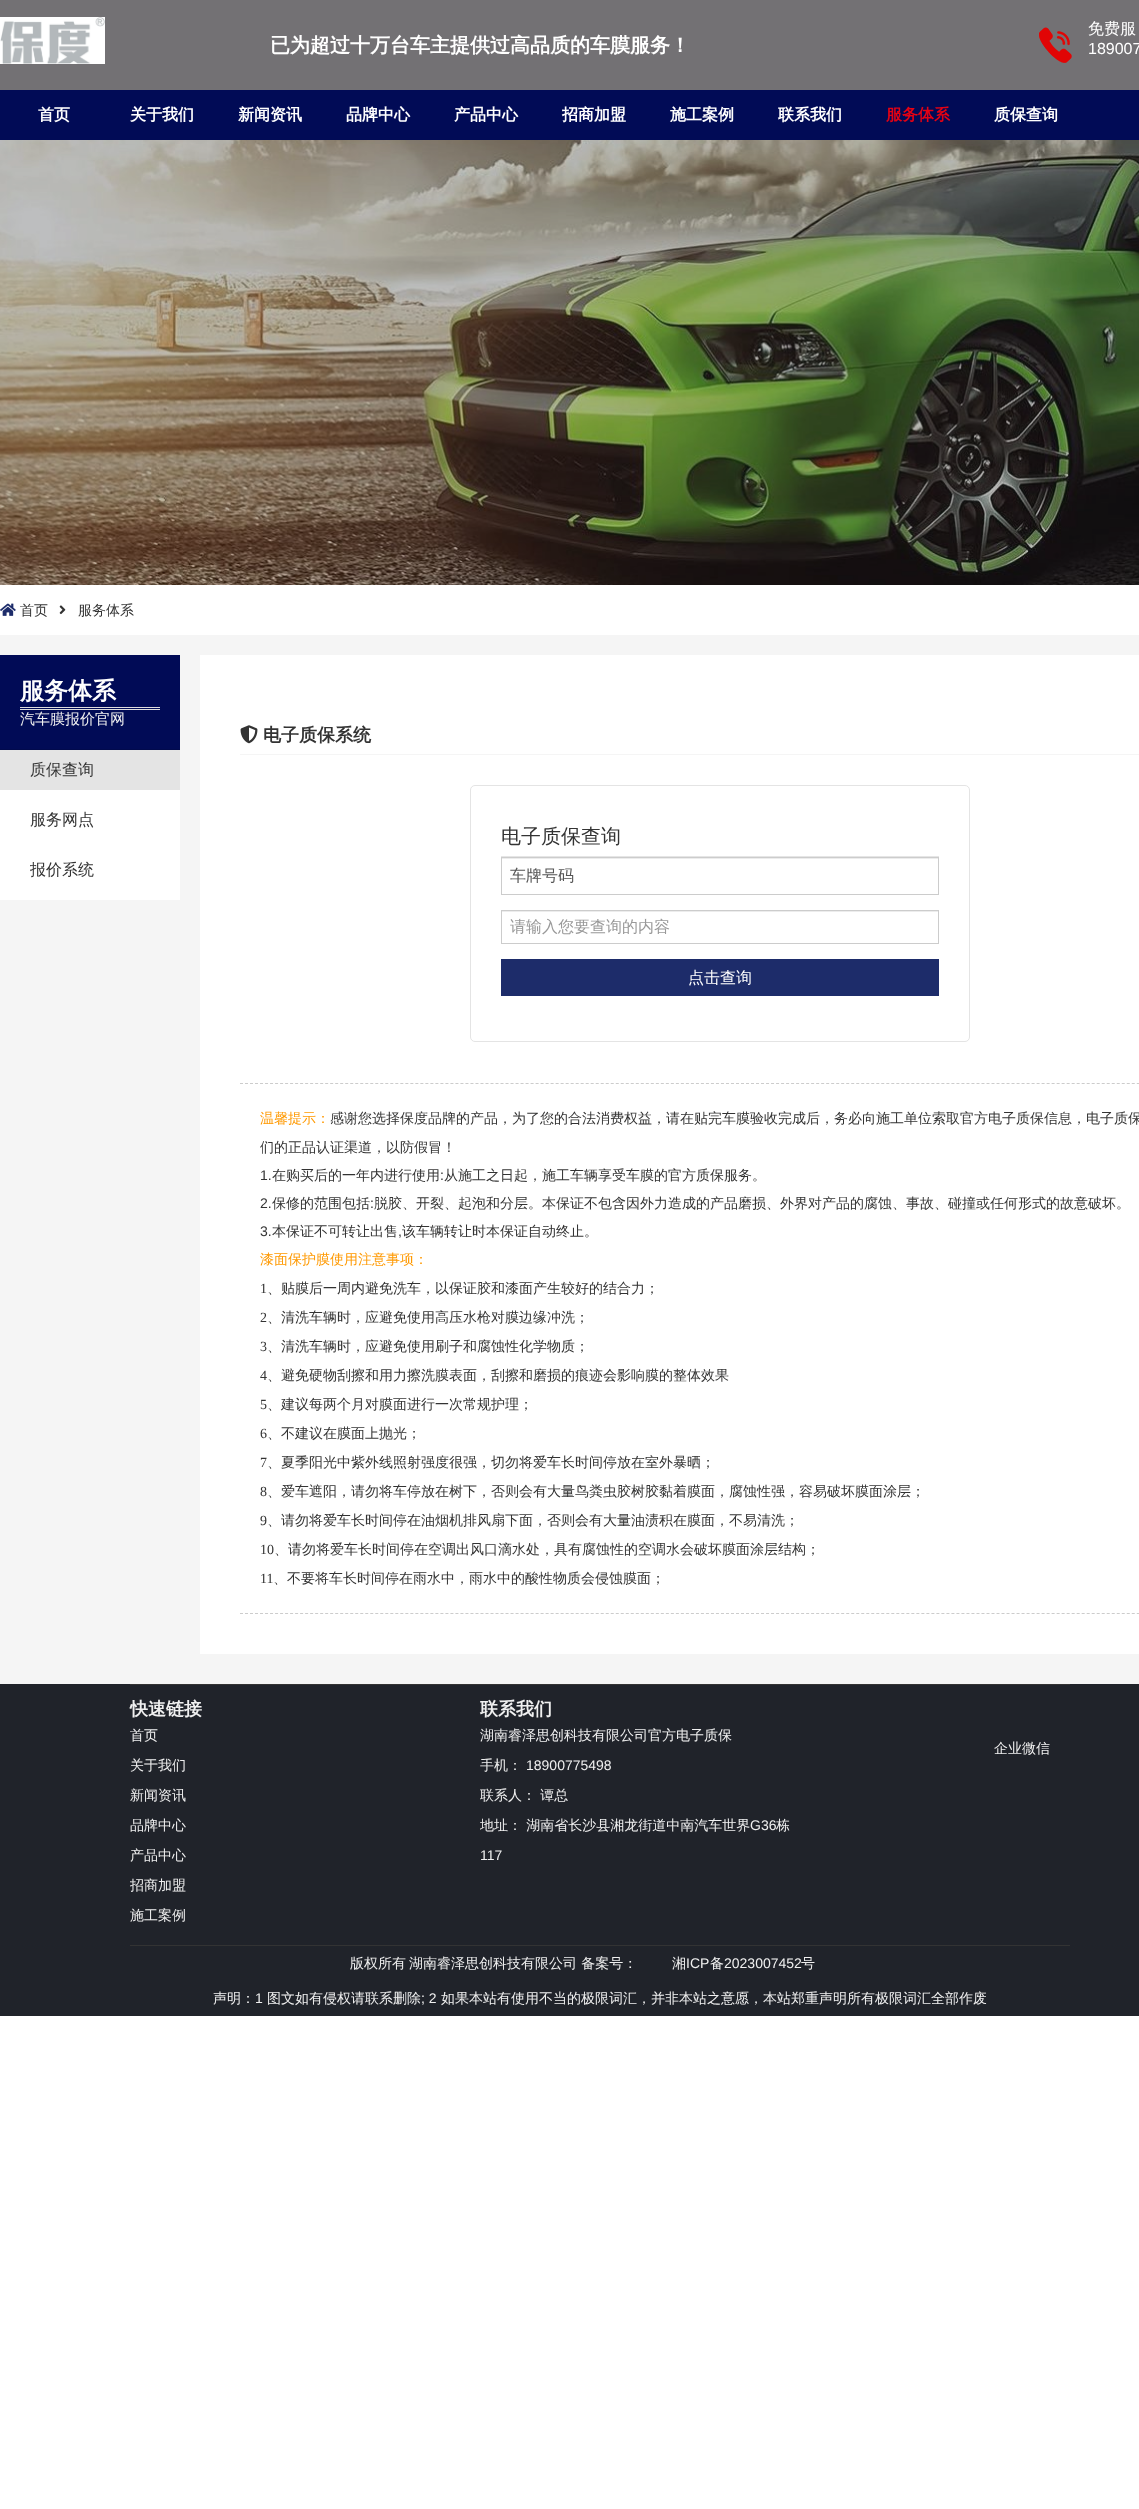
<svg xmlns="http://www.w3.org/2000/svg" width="1139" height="2509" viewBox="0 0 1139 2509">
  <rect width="100%" height="100%" fill="#ffffff"/>
  <rect x="0" y="635" width="1139" height="1049" fill="#f5f5f5"/>
  <rect x="0" y="0" width="1139" height="90" fill="#737174"/>
  <image x="0" y="17" width="105" height="47" href="img1.png"/>
  <text x="270" y="52" font-family="WenQuanYi Zen Hei" font-size="20" font-weight="bold" fill="#ffffff">已为超过十万台车主提供过高品质的车膜服务！</text>
  <image x="1039" y="27" width="33" height="36" href="img2.png"/>
  <text x="1088" y="34" font-family="WenQuanYi Zen Hei" font-size="16" font-weight="500" fill="#ffffff">免费服</text>
  <text x="1088" y="54" font-family="Liberation Sans" font-size="16" fill="#ffffff">189007</text>
  <rect x="0" y="90" width="1139" height="50" fill="#010b56"/>
  <text x="38" y="120" font-family="WenQuanYi Zen Hei" font-size="16" font-weight="bold" fill="#ffffff">首页</text>
  <text x="130" y="120" font-family="WenQuanYi Zen Hei" font-size="16" font-weight="bold" fill="#ffffff">关于我们</text>
  <text x="238" y="120" font-family="WenQuanYi Zen Hei" font-size="16" font-weight="bold" fill="#ffffff">新闻资讯</text>
  <text x="346" y="120" font-family="WenQuanYi Zen Hei" font-size="16" font-weight="bold" fill="#ffffff">品牌中心</text>
  <text x="454" y="120" font-family="WenQuanYi Zen Hei" font-size="16" font-weight="bold" fill="#ffffff">产品中心</text>
  <text x="562" y="120" font-family="WenQuanYi Zen Hei" font-size="16" font-weight="bold" fill="#ffffff">招商加盟</text>
  <text x="670" y="120" font-family="WenQuanYi Zen Hei" font-size="16" font-weight="bold" fill="#ffffff">施工案例</text>
  <text x="778" y="120" font-family="WenQuanYi Zen Hei" font-size="16" font-weight="bold" fill="#ffffff">联系我们</text>
  <text x="886" y="120" font-family="WenQuanYi Zen Hei" font-size="16" font-weight="bold" fill="#e50213">服务体系</text>
  <text x="994" y="120" font-family="WenQuanYi Zen Hei" font-size="16" font-weight="bold" fill="#ffffff">质保查询</text>
  <image x="0" y="140" width="1139" height="445" href="img3.png"/>
  <image x="0" y="603" width="16" height="13" href="img4.png"/>
  <text x="20" y="615" font-family="WenQuanYi Zen Hei" font-size="14" font-weight="500" fill="#333333">首页</text>
  <image x="59" y="605" width="7" height="10" href="img5.png"/>
  <text x="78" y="615" font-family="WenQuanYi Zen Hei" font-size="14" font-weight="500" fill="#333333">服务体系</text>
  <rect x="0" y="790" width="180" height="110" fill="#ffffff"/>
  <rect x="0" y="655" width="180" height="94" fill="#010b56"/>
  <rect x="0" y="749" width="180" height="1" fill="#010a4d"/>
  <rect x="20" y="707" width="140" height="1" fill="#dedddd"/>
  <rect x="20" y="709" width="140" height="1" fill="#dedddd"/>
  <text x="20" y="699" font-family="WenQuanYi Zen Hei" font-size="24" font-weight="bold" fill="#ffffff">服务体系</text>
  <text x="20" y="724" font-family="WenQuanYi Zen Hei" font-size="15" font-weight="500" fill="#f0f0f0">汽车膜报价官网</text>
  <rect x="0" y="750" width="180" height="40" fill="#e4e4e4"/>
  <text x="30" y="775" font-family="WenQuanYi Zen Hei" font-size="16" font-weight="500" fill="#333333">质保查询</text>
  <text x="30" y="825" font-family="WenQuanYi Zen Hei" font-size="16" font-weight="500" fill="#333333">服务网点</text>
  <text x="30" y="875" font-family="WenQuanYi Zen Hei" font-size="16" font-weight="500" fill="#333333">报价系统</text>
  <rect x="200" y="655" width="939" height="999" fill="#ffffff"/>
  <rect x="240" y="754" width="899" height="1" fill="#f5f5f5"/>
  <image x="240" y="725" width="18" height="19" href="img6.png"/>
  <text x="263" y="741" font-family="WenQuanYi Zen Hei" font-size="18" font-weight="bold" fill="#333333">电子质保系统</text>
  <rect x="470.5" y="785.5" width="499" height="256" rx="4.5" fill="none" stroke="#e4e4e4"/>
  <rect x="501" y="856" width="438" height="1" fill="#e5e5e5"/>
  <text x="501" y="843" font-family="WenQuanYi Zen Hei" font-size="20" font-weight="500" fill="#333333">电子质保查询</text>
  <rect x="502" y="858" width="436" height="1" fill="#ececec"/>
  <rect x="501.5" y="857.5" width="437" height="37" fill="none" stroke="#cccccc"/>
  <text x="510" y="881" font-family="WenQuanYi Zen Hei" font-size="16" font-weight="500" fill="#555555">车牌号码</text>
  <rect x="502" y="911" width="436" height="1" fill="#ececec"/>
  <rect x="501.5" y="910.5" width="437" height="33" fill="none" stroke="#cccccc"/>
  <text x="510" y="932" font-family="WenQuanYi Zen Hei" font-size="16" font-weight="500" fill="#999999">请输入您要查询的内容</text>
  <rect x="501" y="959" width="438" height="37" fill="#1d2c6a"/>
  <text x="688" y="983" font-family="WenQuanYi Zen Hei" font-size="16" font-weight="500" fill="#ffffff">点击查询</text>
  <path d="M240 1083.5H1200" fill="none" stroke="#cccccc" stroke-dasharray="3 2.01"/>
  <path d="M240 1613.5H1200" fill="none" stroke="#cccccc" stroke-dasharray="3 2.01"/>
  <text x="260" y="1123" font-family="WenQuanYi Zen Hei" font-size="14" font-weight="500" fill="#ff9900">温馨提示：</text>
  <text x="330" y="1123" font-family="WenQuanYi Zen Hei" font-size="14" font-weight="500" fill="#333333">感谢您选择保度品牌的产品，为了您的合法消费权益，请在贴完车膜验收完成后，务必向施工单位索取官方电子质保信息，电子质保</text>
  <text x="260" y="1152" font-family="WenQuanYi Zen Hei" font-size="14" font-weight="500" fill="#333333">们的正品认证渠道，以防假冒！</text>
  <text x="260" y="1180" font-family="Liberation Sans" font-size="14" fill="#333333">1.</text>
  <text x="272" y="1180" font-family="WenQuanYi Zen Hei" font-size="14" font-weight="500" fill="#333333">在购买后的一年内进行使用</text>
  <text x="440" y="1180" font-family="Liberation Sans" font-size="14" fill="#333333">:</text>
  <text x="444" y="1180" font-family="WenQuanYi Zen Hei" font-size="14" font-weight="500" fill="#333333">从施工之日起，施工车辆享受车膜的官方质保服务。</text>
  <text x="260" y="1208" font-family="Liberation Sans" font-size="14" fill="#333333">2.</text>
  <text x="272" y="1208" font-family="WenQuanYi Zen Hei" font-size="14" font-weight="500" fill="#333333">保修的范围包括</text>
  <text x="370" y="1208" font-family="Liberation Sans" font-size="14" fill="#333333">:</text>
  <text x="374" y="1208" font-family="WenQuanYi Zen Hei" font-size="14" font-weight="500" fill="#333333">脱胶、开裂、起泡和分层。本保证不包含因外力造成的产品磨损、外界对产品的腐蚀、事故、碰撞或任何形式的故意破坏。</text>
  <text x="260" y="1236" font-family="Liberation Sans" font-size="14" fill="#333333">3.</text>
  <text x="272" y="1236" font-family="WenQuanYi Zen Hei" font-size="14" font-weight="500" fill="#333333">本保证不可转让出售</text>
  <text x="398" y="1236" font-family="Liberation Sans" font-size="14" fill="#333333">,</text>
  <text x="402" y="1236" font-family="WenQuanYi Zen Hei" font-size="14" font-weight="500" fill="#333333">该车辆转让时本保证自动终止。</text>
  <text x="260" y="1264" font-family="WenQuanYi Zen Hei" font-size="14" font-weight="500" fill="#ff9900">漆面保护膜使用注意事项：</text>
  <text x="260" y="1293" font-family="Liberation Serif" font-size="14" fill="#333333">1</text>
  <text x="267" y="1293" font-family="WenQuanYi Zen Hei" font-size="14" font-weight="500" fill="#333333">、贴膜后一周内避免洗车，以保证胶和漆面产生较好的结合力；</text>
  <text x="260" y="1322" font-family="Liberation Serif" font-size="14" fill="#333333">2</text>
  <text x="267" y="1322" font-family="WenQuanYi Zen Hei" font-size="14" font-weight="500" fill="#333333">、清洗车辆时，应避免使用高压水枪对膜边缘冲洗；</text>
  <text x="260" y="1351" font-family="Liberation Serif" font-size="14" fill="#333333">3</text>
  <text x="267" y="1351" font-family="WenQuanYi Zen Hei" font-size="14" font-weight="500" fill="#333333">、清洗车辆时，应避免使用刷子和腐蚀性化学物质；</text>
  <text x="260" y="1380" font-family="Liberation Serif" font-size="14" fill="#333333">4</text>
  <text x="267" y="1380" font-family="WenQuanYi Zen Hei" font-size="14" font-weight="500" fill="#333333">、避免硬物刮擦和用力擦洗膜表面，刮擦和磨损的痕迹会影响膜的整体效果</text>
  <text x="260" y="1409" font-family="Liberation Serif" font-size="14" fill="#333333">5</text>
  <text x="267" y="1409" font-family="WenQuanYi Zen Hei" font-size="14" font-weight="500" fill="#333333">、建议每两个月对膜面进行一次常规护理；</text>
  <text x="260" y="1438" font-family="Liberation Serif" font-size="14" fill="#333333">6</text>
  <text x="267" y="1438" font-family="WenQuanYi Zen Hei" font-size="14" font-weight="500" fill="#333333">、不建议在膜面上抛光；</text>
  <text x="260" y="1467" font-family="Liberation Serif" font-size="14" fill="#333333">7</text>
  <text x="267" y="1467" font-family="WenQuanYi Zen Hei" font-size="14" font-weight="500" fill="#333333">、夏季阳光中紫外线照射强度很强，切勿将爱车长时间停放在室外暴晒；</text>
  <text x="260" y="1496" font-family="Liberation Serif" font-size="14" fill="#333333">8</text>
  <text x="267" y="1496" font-family="WenQuanYi Zen Hei" font-size="14" font-weight="500" fill="#333333">、爱车遮阳，请勿将车停放在树下，否则会有大量鸟粪虫胶树胶黏着膜面，腐蚀性强，容易破坏膜面涂层；</text>
  <text x="260" y="1525" font-family="Liberation Serif" font-size="14" fill="#333333">9</text>
  <text x="267" y="1525" font-family="WenQuanYi Zen Hei" font-size="14" font-weight="500" fill="#333333">、请勿将爱车长时间停在油烟机排风扇下面，否则会有大量油渍积在膜面，不易清洗；</text>
  <text x="260" y="1554" font-family="Liberation Serif" font-size="14" fill="#333333">10</text>
  <text x="274" y="1554" font-family="WenQuanYi Zen Hei" font-size="14" font-weight="500" fill="#333333">、请勿将爱车长时间停在空调出风口滴水处，具有腐蚀性的空调水会破坏膜面涂层结构；</text>
  <text x="260" y="1583" font-family="Liberation Serif" font-size="14" fill="#333333">11</text>
  <text x="273" y="1583" font-family="WenQuanYi Zen Hei" font-size="14" font-weight="500" fill="#333333">、不要将车长时间停在雨水中，雨水中的酸性物质会侵蚀膜面；</text>
  <rect x="0" y="1684" width="1139" height="332" fill="#20232a"/>
  <rect x="130" y="1684" width="940" height="1" fill="#333333"/>
  <rect x="130" y="1945" width="940" height="1" fill="#333333"/>
  <text x="130" y="1715" font-family="WenQuanYi Zen Hei" font-size="18" font-weight="bold" fill="#f0f0f0">快速链接</text>
  <text x="130" y="1740" font-family="WenQuanYi Zen Hei" font-size="14" font-weight="500" fill="#f0f0f0">首页</text>
  <text x="130" y="1770" font-family="WenQuanYi Zen Hei" font-size="14" font-weight="500" fill="#f0f0f0">关于我们</text>
  <text x="130" y="1800" font-family="WenQuanYi Zen Hei" font-size="14" font-weight="500" fill="#f0f0f0">新闻资讯</text>
  <text x="130" y="1830" font-family="WenQuanYi Zen Hei" font-size="14" font-weight="500" fill="#f0f0f0">品牌中心</text>
  <text x="130" y="1860" font-family="WenQuanYi Zen Hei" font-size="14" font-weight="500" fill="#f0f0f0">产品中心</text>
  <text x="130" y="1890" font-family="WenQuanYi Zen Hei" font-size="14" font-weight="500" fill="#f0f0f0">招商加盟</text>
  <text x="130" y="1920" font-family="WenQuanYi Zen Hei" font-size="14" font-weight="500" fill="#f0f0f0">施工案例</text>
  <text x="480" y="1715" font-family="WenQuanYi Zen Hei" font-size="18" font-weight="bold" fill="#f0f0f0">联系我们</text>
  <text x="480" y="1740" font-family="WenQuanYi Zen Hei" font-size="14" font-weight="500" fill="#f0f0f0">湖南睿泽思创科技有限公司官方电子质保</text>
  <text x="480" y="1770" font-family="WenQuanYi Zen Hei" font-size="14" font-weight="500" fill="#f0f0f0">手机：</text>
  <text x="526" y="1770" font-family="Liberation Sans" font-size="14" fill="#f0f0f0">18900775498</text>
  <text x="480" y="1800" font-family="WenQuanYi Zen Hei" font-size="14" font-weight="500" fill="#f0f0f0">联系人： 谭总</text>
  <text x="480" y="1830" font-family="WenQuanYi Zen Hei" font-size="14" font-weight="500" fill="#f0f0f0">地址： 湖南省长沙县湘龙街道中南汽车世界</text>
  <text x="750" y="1830" font-family="Liberation Sans" font-size="14" fill="#f0f0f0">G36</text>
  <text x="776" y="1830" font-family="WenQuanYi Zen Hei" font-size="14" font-weight="500" fill="#f0f0f0">栋</text>
  <text x="480" y="1860" font-family="Liberation Sans" font-size="14" fill="#f0f0f0">117</text>
  <text x="994" y="1753" font-family="WenQuanYi Zen Hei" font-size="14" font-weight="500" fill="#f0f0f0">企业微信</text>
  <text x="350" y="1968" font-family="WenQuanYi Zen Hei" font-size="14" font-weight="500" fill="#f0f0f0">版权所有</text>
  <text x="409" y="1968" font-family="WenQuanYi Zen Hei" font-size="14" font-weight="500" fill="#f0f0f0">湖南睿泽思创科技有限公司 备案号：</text>
  <text x="672" y="1968" font-family="WenQuanYi Zen Hei" font-size="14" font-weight="500" fill="#f0f0f0">湘</text>
  <text x="686" y="1968" font-family="Liberation Sans" font-size="14" fill="#f0f0f0">ICP</text>
  <text x="710" y="1968" font-family="WenQuanYi Zen Hei" font-size="14" font-weight="500" fill="#f0f0f0">备</text>
  <text x="724" y="1968" font-family="Liberation Sans" font-size="14" fill="#f0f0f0">2023007452</text>
  <text x="801" y="1968" font-family="WenQuanYi Zen Hei" font-size="14" font-weight="500" fill="#f0f0f0">号</text>
  <text x="213" y="2003" font-family="WenQuanYi Zen Hei" font-size="14" font-weight="500" fill="#f0f0f0">声明：</text>
  <text x="255" y="2003" font-family="Liberation Sans" font-size="14" fill="#f0f0f0">1</text>
  <text x="267" y="2003" font-family="WenQuanYi Zen Hei" font-size="14" font-weight="500" fill="#f0f0f0">图文如有侵权请联系删除</text>
  <text x="421" y="2003" font-family="Liberation Sans" font-size="14" fill="#f0f0f0">; 2</text>
  <text x="441" y="2003" font-family="WenQuanYi Zen Hei" font-size="14" font-weight="500" fill="#f0f0f0">如果本站有使用不当的极限词汇，并非本站之意愿，本站郑重声明所有极限词汇全部作废</text>
</svg>
